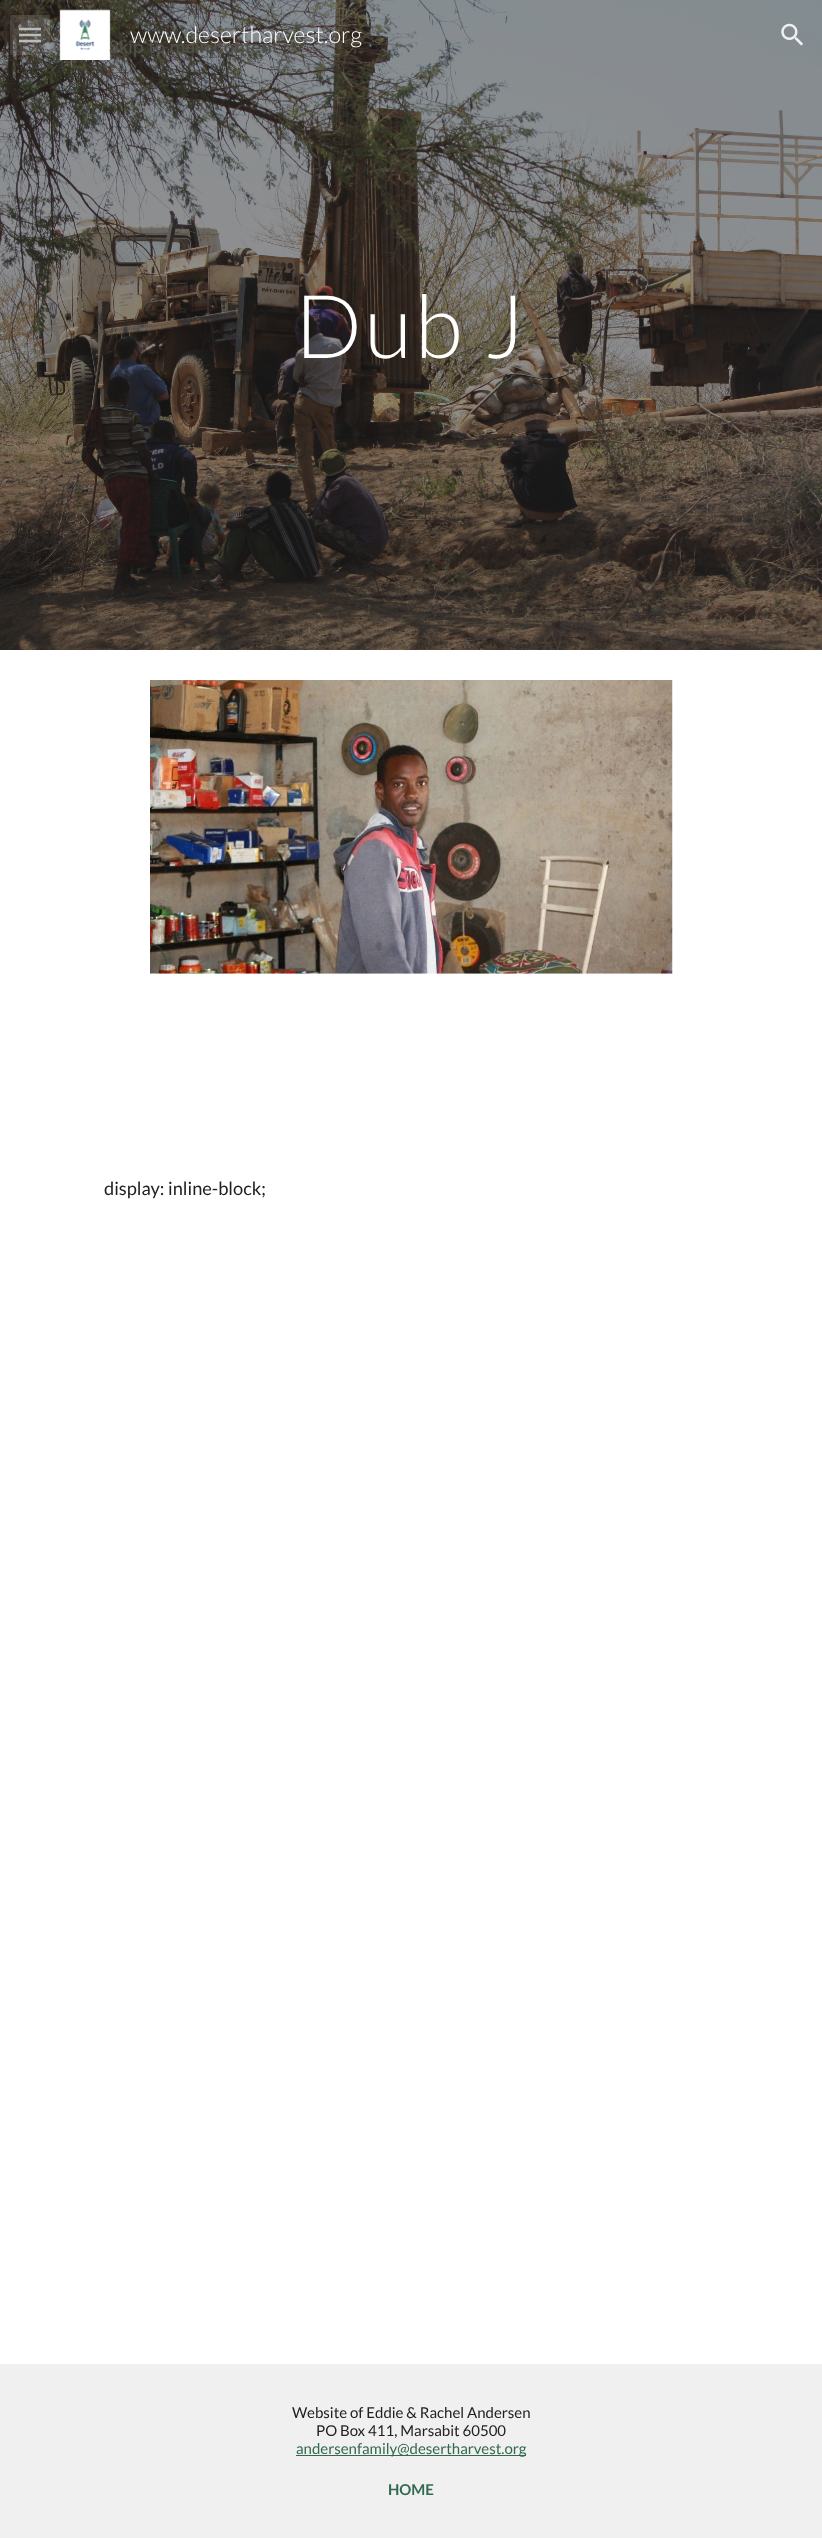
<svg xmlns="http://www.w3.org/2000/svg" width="822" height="2538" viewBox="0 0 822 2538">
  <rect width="100%" height="100%" fill="#ffffff"/>
  <image x="0" y="0" width="822" height="650" href="img3.png"/>
  <path d="M19 29H41M19 35H41M19 41H41" fill="none" stroke="#b2b2b2" stroke-width="2.5"/>
  <rect x="10" y="15" width="40" height="40" fill="#ffffff" fill-opacity="0.12"/>
  <image x="59" y="9" width="52" height="51" href="img1.png"/>
  <text x="130" y="43" font-family="Lato" font-size="23.25" font-weight="300" fill="#ffffff">www.desertharvest.org</text>
  <image x="781" y="23" width="22" height="23" href="img2.png"/>
  <text x="295" y="358" font-family="Lato" font-size="88" font-weight="300" letter-spacing="2.5" fill="#ffffff">Dub J</text>
  <image x="150" y="680" width="523" height="294" href="img4.png"/>
  <text x="104" y="1195" font-family="Lato" font-size="18.25" fill="#212121">display: inline-block;</text>
  <rect x="0" y="2364" width="822" height="174" fill="#f0f0f0"/>
  <text x="292" y="2418" font-family="Lato" font-size="15" fill="#212121">Website of Eddie &amp; Rachel Andersen</text>
  <text x="316" y="2436" font-family="Lato" font-size="15" fill="#212121">PO Box 411, Marsabit 60500</text>
  <rect x="296" y="2455" width="230" height="1" fill="#33694f"/>
  <text x="296" y="2454" font-family="Lato" font-size="15" fill="#33694f">andersenfamily@desertharvest.org</text>
  <text x="388" y="2495" font-family="Lato" font-size="15" font-weight="bold" fill="#33694f">HOME</text>
  <text x="109" y="53" font-family="Google Sans" font-size="17.5" font-weight="500" letter-spacing="0.2" fill="#504f49">Skip to main content</text>
</svg>
